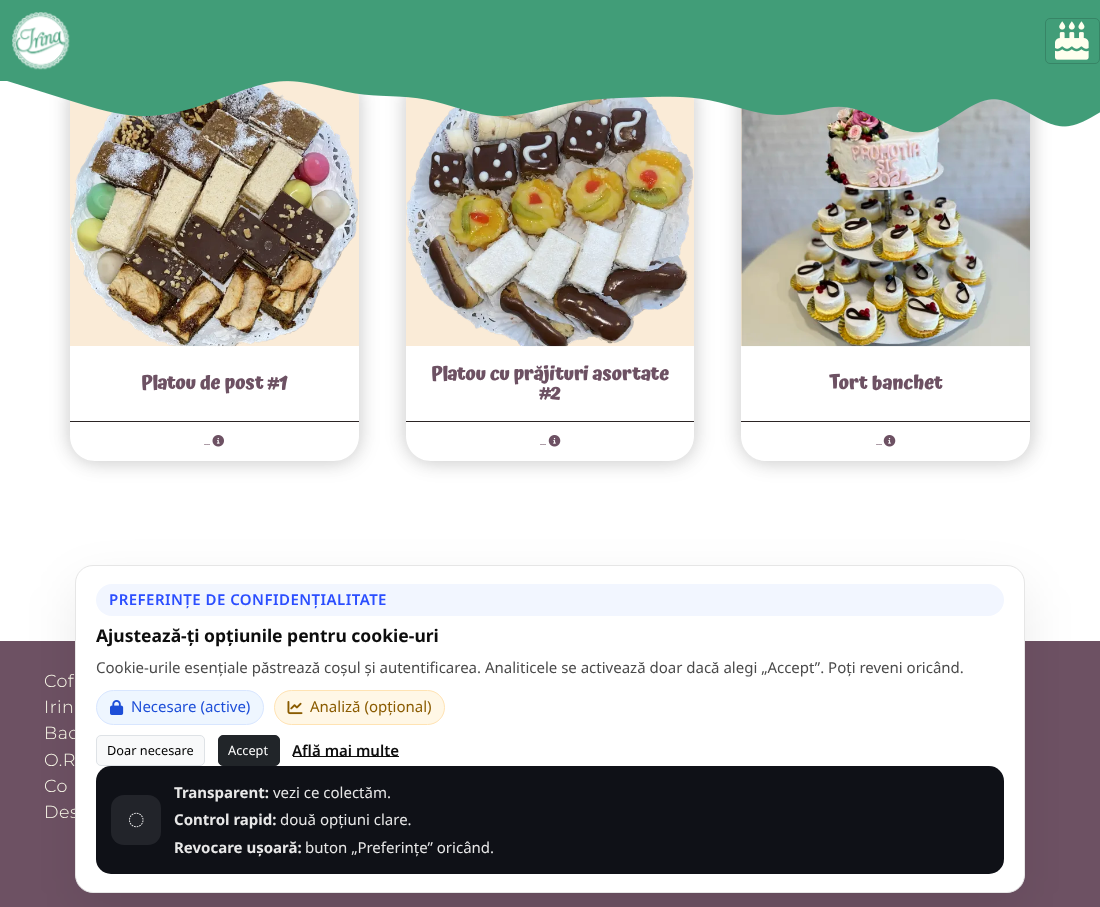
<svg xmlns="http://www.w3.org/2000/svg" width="1100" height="907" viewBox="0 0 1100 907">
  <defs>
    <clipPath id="clip1"><path d="M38 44H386V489H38ZM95 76H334C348 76 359 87 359 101V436C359 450 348 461 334 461H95C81 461 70 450 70 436V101C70 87 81 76 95 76Z" clip-rule="evenodd"/></clipPath>
    <filter id="blur1" x="-50%" y="-200%" width="200%" height="500%"><feGaussianBlur stdDeviation="9.5"/></filter>
    <clipPath id="clip2"><path d="M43 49H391V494H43ZM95 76H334C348 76 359 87 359 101V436C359 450 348 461 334 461H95C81 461 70 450 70 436V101C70 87 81 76 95 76Z" clip-rule="evenodd"/></clipPath>
    <clipPath id="clip3"><path d="M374 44H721V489H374ZM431 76H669C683 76 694 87 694 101V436C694 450 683 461 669 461H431C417 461 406 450 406 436V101C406 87 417 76 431 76Z" clip-rule="evenodd"/></clipPath>
    <clipPath id="clip4"><path d="M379 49H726V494H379ZM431 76H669C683 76 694 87 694 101V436C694 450 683 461 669 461H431C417 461 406 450 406 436V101C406 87 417 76 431 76Z" clip-rule="evenodd"/></clipPath>
    <clipPath id="clip5"><path d="M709 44H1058V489H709ZM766 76H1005C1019 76 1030 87 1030 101V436C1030 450 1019 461 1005 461H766C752 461 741 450 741 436V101C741 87 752 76 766 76Z" clip-rule="evenodd"/></clipPath>
    <clipPath id="clip6"><path d="M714 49H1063V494H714ZM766 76H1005C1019 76 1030 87 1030 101V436C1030 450 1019 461 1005 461H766C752 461 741 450 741 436V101C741 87 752 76 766 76Z" clip-rule="evenodd"/></clipPath>
    <filter id="blur2" x="-50%" y="-200%" width="200%" height="500%"><feGaussianBlur stdDeviation="25"/></filter>
  </defs>
  <rect width="100%" height="100%" fill="#ffffff"/>
  <g clip-path="url(#clip1)">
    <rect x="68" y="74" width="288" height="385" rx="25" fill="#000000" fill-opacity="0.12" filter="url(#blur1)"/>
  </g>
  <g clip-path="url(#clip2)">
    <rect x="73" y="79" width="288" height="385" rx="25" fill="#000000" fill-opacity="0.12" filter="url(#blur1)"/>
  </g>
  <path d="M95 76H334C348 76 359 87 359 101V346H70V101C70 87 81 76 95 76Z" fill="#faebd7"/>
  <g clip-path="url(#clip3)">
    <rect x="404" y="74" width="287" height="385" rx="25" fill="#000000" fill-opacity="0.12" filter="url(#blur1)"/>
  </g>
  <g clip-path="url(#clip4)">
    <rect x="409" y="79" width="287" height="385" rx="25" fill="#000000" fill-opacity="0.12" filter="url(#blur1)"/>
  </g>
  <path d="M431 76H669C683 76 694 87 694 101V346H406V101C406 87 417 76 431 76Z" fill="#faebd7"/>
  <g clip-path="url(#clip5)">
    <rect x="739" y="74" width="289" height="385" rx="25" fill="#000000" fill-opacity="0.12" filter="url(#blur1)"/>
  </g>
  <g clip-path="url(#clip6)">
    <rect x="744" y="79" width="289" height="385" rx="25" fill="#000000" fill-opacity="0.12" filter="url(#blur1)"/>
  </g>
  <rect x="0" y="0" width="1100" height="81" fill="#419d78"/>
  <image x="12" y="12" width="58" height="58" href="img1.png"/>
  <rect x="1045.5" y="18.5" width="54" height="45" rx="4.5" fill="none" stroke="#378566"/>
  <image x="1055" y="21" width="34" height="39" href="img2.png"/>
  <image x="70" y="84" width="289" height="263" href="img4.png"/>
  <image x="406" y="97" width="288" height="250" href="img6.png"/>
  <rect x="741" y="108" width="1" height="238" fill="#faebd7"/>
  <image x="741" y="99" width="289" height="248" href="img8.png"/>
  <image x="7" y="81" width="1093" height="52" href="img3.png"/>
  <rect x="70" y="421" width="289" height="1" fill="#2b2424"/>
  <text x="141" y="389" font-family="Atma" font-size="19.25" font-weight="bold" letter-spacing="-0.4" fill="#6d5163">Platou de post #1</text>
  <text x="204" y="445" font-family="Atma" font-size="12" fill="#6d5163">...</text>
  <image x="212" y="435" width="12" height="12" href="img5.png"/>
  <rect x="406" y="421" width="288" height="1" fill="#2b2424"/>
  <text x="431" y="380" font-family="Atma" font-size="19.25" font-weight="bold" letter-spacing="-0.4" fill="#6d5163">Platou cu prăjituri asortate</text>
  <text x="539" y="399" font-family="Atma" font-size="19.25" font-weight="bold" letter-spacing="-0.4" fill="#6d5163">#2</text>
  <text x="540" y="445" font-family="Atma" font-size="12" fill="#6d5163">...</text>
  <image x="548" y="435" width="13" height="12" href="img7.png"/>
  <rect x="741" y="421" width="289" height="1" fill="#2b2424"/>
  <text x="829" y="389" font-family="Atma" font-size="19.25" font-weight="bold" letter-spacing="-0.4" fill="#6d5163">Tort banchet</text>
  <text x="876" y="445" font-family="Atma" font-size="12" fill="#6d5163">...</text>
  <image x="883" y="435" width="13" height="12" href="img7.png"/>
  <rect x="0" y="641" width="1100" height="266" fill="#6d5163"/>
  <text x="44" y="687" font-family="Montserrat" font-size="17.5" font-weight="300" letter-spacing="0.5" fill="#ffffee">Cof</text>
  <text x="44" y="713" font-family="Montserrat" font-size="17.5" font-weight="300" letter-spacing="0.5" fill="#ffffee">Irin</text>
  <text x="44" y="739" font-family="Montserrat" font-size="17.5" font-weight="300" letter-spacing="0.5" fill="#ffffee">Bac</text>
  <text x="44" y="766" font-family="Montserrat" font-size="17.5" font-weight="300" letter-spacing="0.5" fill="#ffffee">O.R</text>
  <text x="44" y="792" font-family="Montserrat" font-size="17.5" font-weight="300" letter-spacing="0.5" fill="#ffffee">Co</text>
  <text x="44" y="818" font-family="Montserrat" font-size="17.5" font-weight="300" letter-spacing="0.5" fill="#ffffee">Des</text>
  <rect x="75" y="585" width="950" height="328" rx="18" fill="#111111" fill-opacity="0.08" filter="url(#blur2)"/>
  <rect x="75.5" y="565.5" width="949" height="327" rx="17.5" fill="#ffffff" stroke="#e6e6e6"/>
  <rect x="96" y="584" width="908" height="32" rx="16" fill="#f2f6ff"/>
  <text x="109" y="605" font-family="Noto Sans" font-size="15" font-weight="600" letter-spacing="0.45" fill="#2b4eff">PREFERINȚE DE CONFIDENȚIALITATE</text>
  <text x="96" y="642" font-family="Noto Sans" font-size="17.5" font-weight="bold" fill="#0d0d0d">Ajustează-ți opțiunile pentru cookie-uri</text>
  <text x="96" y="673" font-family="Noto Sans" font-size="15" fill="#4a4a4a">Cookie-urile esențiale păstrează coșul și autentificarea. Analiticele se activează doar dacă alegi „Accept”. Poți reveni oricând.</text>
  <rect x="96.5" y="690.5" width="167" height="34" rx="17" fill="#eef6ff" stroke="#d8e6ff"/>
  <image x="110" y="700" width="14" height="15" href="img9.png"/>
  <text x="131" y="712" font-family="Noto Sans" font-size="15" fill="#1d4ed8">Necesare (active)</text>
  <rect x="274.5" y="690.5" width="170" height="34" rx="17" fill="#fff7e6" stroke="#ffe3b3"/>
  <image x="287" y="701" width="16" height="14" href="img10.png"/>
  <text x="310" y="712" font-family="Noto Sans" font-size="15" fill="#8a5b00">Analiză (opțional)</text>
  <rect x="96.5" y="735.5" width="108" height="30" rx="4.5" fill="#f8f9fa" stroke="#dee2e6"/>
  <text x="107" y="755" font-family="Noto Sans" font-size="12.75" fill="#000000">Doar necesare</text>
  <rect x="218.5" y="735.5" width="61" height="30" rx="4.5" fill="#212529" stroke="#212529"/>
  <text x="228" y="755" font-family="Noto Sans" font-size="12.75" fill="#ffffff">Accept</text>
  <rect x="293" y="756" width="106" height="1" fill="#0d0d0d"/>
  <text x="292" y="756" font-family="Noto Sans" font-size="15" font-weight="600" fill="#0d0d0d">Află mai multe</text>
  <rect x="96" y="766" width="908" height="108" rx="15" fill="#0f1117"/>
  <rect x="111" y="795" width="50" height="50" rx="13" fill="#22242a"/>
  <image x="129" y="812" width="15" height="16" href="img11.png"/>
  <text x="174" y="798" font-family="Noto Sans" font-size="15" font-weight="bold" fill="#e8e8e8">Transparent:</text>
  <text x="273" y="798" font-family="Noto Sans" font-size="15" fill="#e8e8e8">vezi ce colectăm.</text>
  <text x="174" y="825" font-family="Noto Sans" font-size="15" font-weight="bold" fill="#e8e8e8">Control rapid:</text>
  <text x="280" y="825" font-family="Noto Sans" font-size="15" fill="#e8e8e8">două opțiuni clare.</text>
  <text x="174" y="853" font-family="Noto Sans" font-size="15" font-weight="bold" fill="#e8e8e8">Revocare ușoară:</text>
  <text x="305" y="853" font-family="Noto Sans" font-size="15" fill="#e8e8e8">buton „Preferințe” oricând.</text>
</svg>
